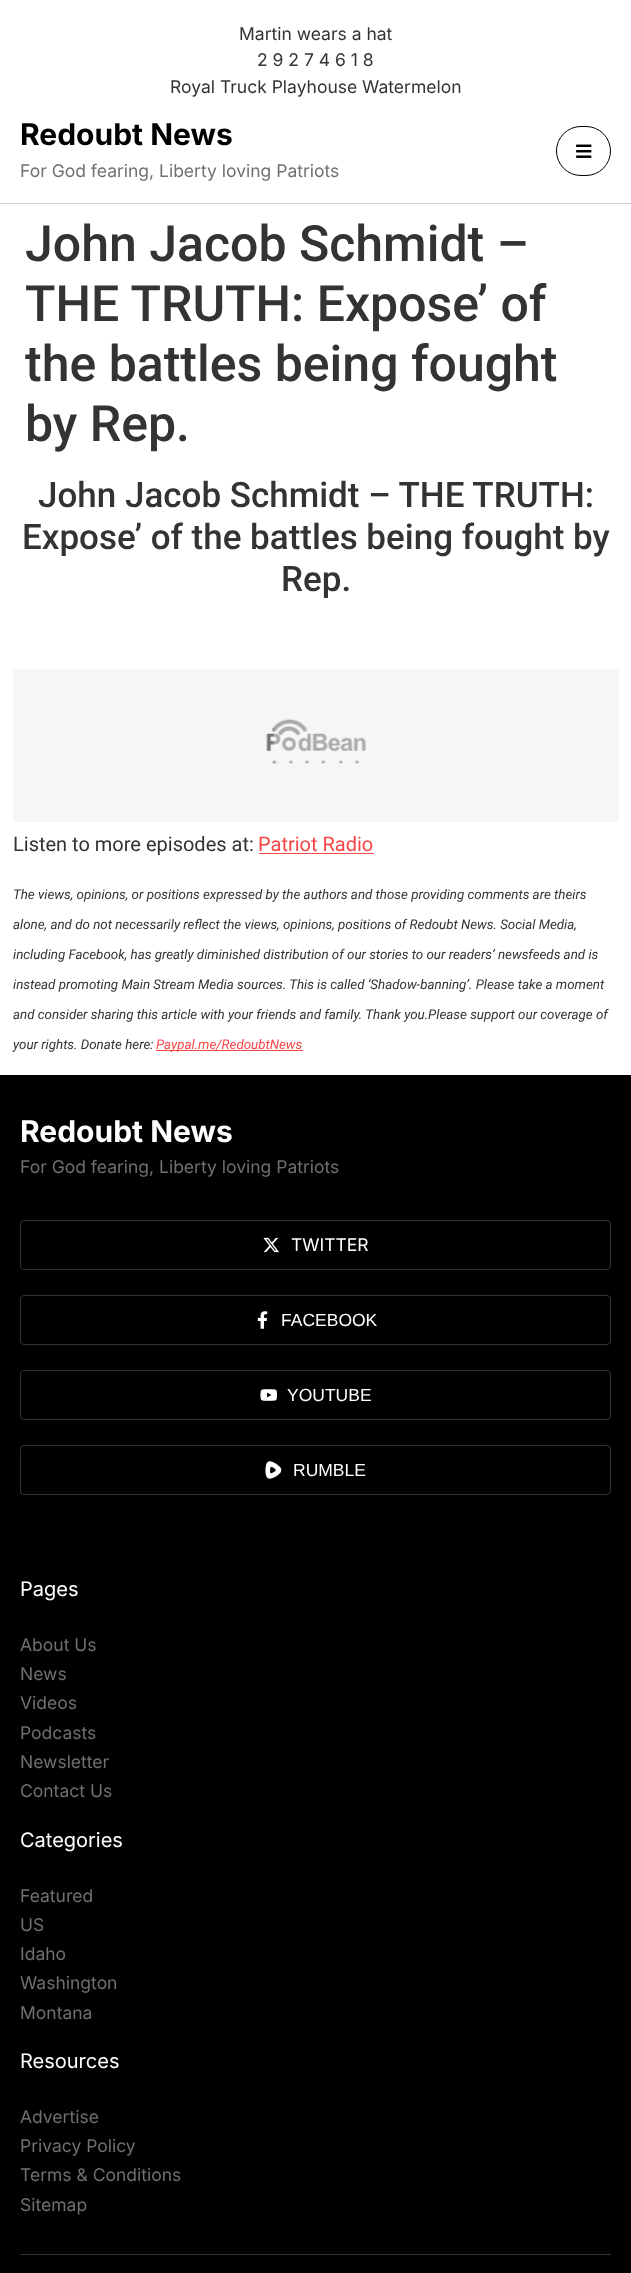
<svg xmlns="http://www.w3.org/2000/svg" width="631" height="2273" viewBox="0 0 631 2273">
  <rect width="100%" height="100%" fill="#ffffff"/>
  <rect x="0" y="203" width="631" height="1" fill="#cdcdcd"/>
  <text x="239" y="40" font-family="Inter" font-size="17.5" fill="#333333">Martin wears a hat</text>
  <text x="257" y="66" font-family="Inter" font-size="17.5" fill="#333333">2 9 2 7 4 6 1 8</text>
  <text x="170" y="93" font-family="Inter" font-size="17.5" fill="#333333">Royal Truck Playhouse Watermelon</text>
  <text x="20" y="145" font-family="Inter" font-size="30" font-weight="bold" fill="#000000">Redoubt News</text>
  <text x="20" y="177" font-family="Inter" font-size="17.5" fill="#707070">For God fearing, Liberty loving Patriots</text>
  <rect x="556.5" y="126.5" width="54" height="49" rx="24.5" fill="none" stroke="#000000"/>
  <image x="576" y="144" width="16" height="14" href="img1.png"/>
  <text x="25" y="261" font-family="Roboto" font-size="50" font-weight="500" fill="#333333">John Jacob Schmidt –</text>
  <text x="25" y="321" font-family="Roboto" font-size="50" font-weight="500" fill="#333333">THE TRUTH: Expose’ of</text>
  <text x="25" y="381" font-family="Roboto" font-size="50" font-weight="500" fill="#333333">the battles being fought</text>
  <text x="25" y="441" font-family="Roboto" font-size="50" font-weight="500" fill="#333333">by Rep.</text>
  <text x="38" y="507" font-family="Roboto" font-size="35" font-weight="500" fill="#333333">John Jacob Schmidt – THE TRUTH:</text>
  <text x="22" y="549" font-family="Roboto" font-size="35" font-weight="500" fill="#333333">Expose’ of the battles being fought by</text>
  <text x="281" y="591" font-family="Roboto" font-size="35" font-weight="500" fill="#333333">Rep.</text>
  <image x="13" y="669" width="606" height="153" href="img2.png"/>
  <text x="13" y="851" font-family="Roboto" font-size="20" fill="#333333">Listen to more episodes at:</text>
  <text x="258" y="851" font-family="Roboto" font-size="20" fill="#f74646">Patriot Radio</text>
  <rect x="259" y="853" width="115" height="1" fill="#f74646"/>
  <text x="13" y="899" font-family="Roboto" font-size="13.35" font-style="italic" fill="#333333">The views, opinions, or positions expressed by the authors and those providing comments are theirs</text>
  <text x="13" y="929" font-family="Roboto" font-size="13.35" font-style="italic" fill="#333333">alone, and do not necessarily reflect the views, opinions, positions of Redoubt News. Social Media,</text>
  <text x="13" y="959" font-family="Roboto" font-size="13.35" font-style="italic" fill="#333333">including Facebook, has greatly diminished distribution of our stories to our readers’ newsfeeds and is</text>
  <text x="13" y="989" font-family="Roboto" font-size="13.35" font-style="italic" fill="#333333">instead promoting Main Stream Media sources. This is called ‘Shadow-banning’. Please take a moment</text>
  <text x="13" y="1019" font-family="Roboto" font-size="13.35" font-style="italic" fill="#333333">and consider sharing this article with your friends and family. Thank you.Please support our coverage of</text>
  <text x="13" y="1049" font-family="Roboto" font-size="13.35" font-style="italic" fill="#333333">your rights. Donate here:</text>
  <rect x="156" y="1050" width="147" height="1" fill="#f74646"/>
  <text x="156" y="1049" font-family="Roboto" font-size="13.35" font-style="italic" fill="#f74646">Paypal.me/RedoubtNews</text>
  <rect x="0" y="1075" width="631" height="1198" fill="#000000"/>
  <rect x="20" y="2254" width="591" height="1" fill="#333333"/>
  <text x="20" y="1142" font-family="Inter" font-size="30" font-weight="bold" fill="#ffffff">Redoubt News</text>
  <text x="20" y="1173" font-family="Inter" font-size="17.5" fill="#707070">For God fearing, Liberty loving Patriots</text>
  <rect x="20.5" y="1220.5" width="590" height="49" rx="3.5" fill="none" stroke="#333333"/>
  <image x="263" y="1237" width="16" height="16" href="img3.png"/>
  <text x="291" y="1251" font-family="Inter" font-size="17.5" fill="#ffffff">TWITTER</text>
  <rect x="20.5" y="1295.5" width="590" height="49" rx="3.5" fill="none" stroke="#333333"/>
  <image x="257" y="1311" width="11" height="18" href="img4.png"/>
  <text x="281" y="1326" font-family="Liberation Sans" font-size="17.5" fill="#ffffff">FACEBOOK</text>
  <rect x="20.5" y="1370.5" width="590" height="49" rx="3.5" fill="none" stroke="#333333"/>
  <image x="260" y="1389" width="18" height="12" href="img5.png"/>
  <text x="287" y="1401" font-family="Liberation Sans" font-size="17.5" fill="#ffffff">YOUTUBE</text>
  <rect x="20.5" y="1445.5" width="590" height="49" rx="3.5" fill="none" stroke="#333333"/>
  <image x="265" y="1461" width="17" height="18" href="img6.png"/>
  <text x="293" y="1476" font-family="Liberation Sans" font-size="17.5" fill="#ffffff">RUMBLE</text>
  <text x="20" y="1596" font-family="Inter" font-size="20" fill="#ffffff">Pages</text>
  <text x="20" y="1651" font-family="Inter" font-size="17.5" fill="#707070">About Us</text>
  <text x="20" y="1680" font-family="Inter" font-size="17.5" fill="#707070">News</text>
  <text x="20" y="1709" font-family="Inter" font-size="17.5" fill="#707070">Videos</text>
  <text x="20" y="1739" font-family="Inter" font-size="17.5" fill="#707070">Podcasts</text>
  <text x="20" y="1768" font-family="Inter" font-size="17.5" fill="#707070">Newsletter</text>
  <text x="20" y="1797" font-family="Inter" font-size="17.5" fill="#707070">Contact Us</text>
  <text x="20" y="1847" font-family="Inter" font-size="20" fill="#ffffff">Categories</text>
  <text x="20" y="1902" font-family="Inter" font-size="17.5" fill="#707070">Featured</text>
  <text x="20" y="1931" font-family="Inter" font-size="17.5" fill="#707070">US</text>
  <text x="20" y="1960" font-family="Inter" font-size="17.5" fill="#707070">Idaho</text>
  <text x="20" y="1989" font-family="Inter" font-size="17.5" fill="#707070">Washington</text>
  <text x="20" y="2019" font-family="Inter" font-size="17.5" fill="#707070">Montana</text>
  <text x="20" y="2068" font-family="Inter" font-size="20" fill="#ffffff">Resources</text>
  <text x="20" y="2123" font-family="Inter" font-size="17.5" fill="#707070">Advertise</text>
  <text x="20" y="2152" font-family="Inter" font-size="17.5" fill="#707070">Privacy Policy</text>
  <text x="20" y="2181" font-family="Inter" font-size="17.5" fill="#707070">Terms &amp; Conditions</text>
  <text x="20" y="2211" font-family="Inter" font-size="17.5" fill="#707070">Sitemap</text>
</svg>
